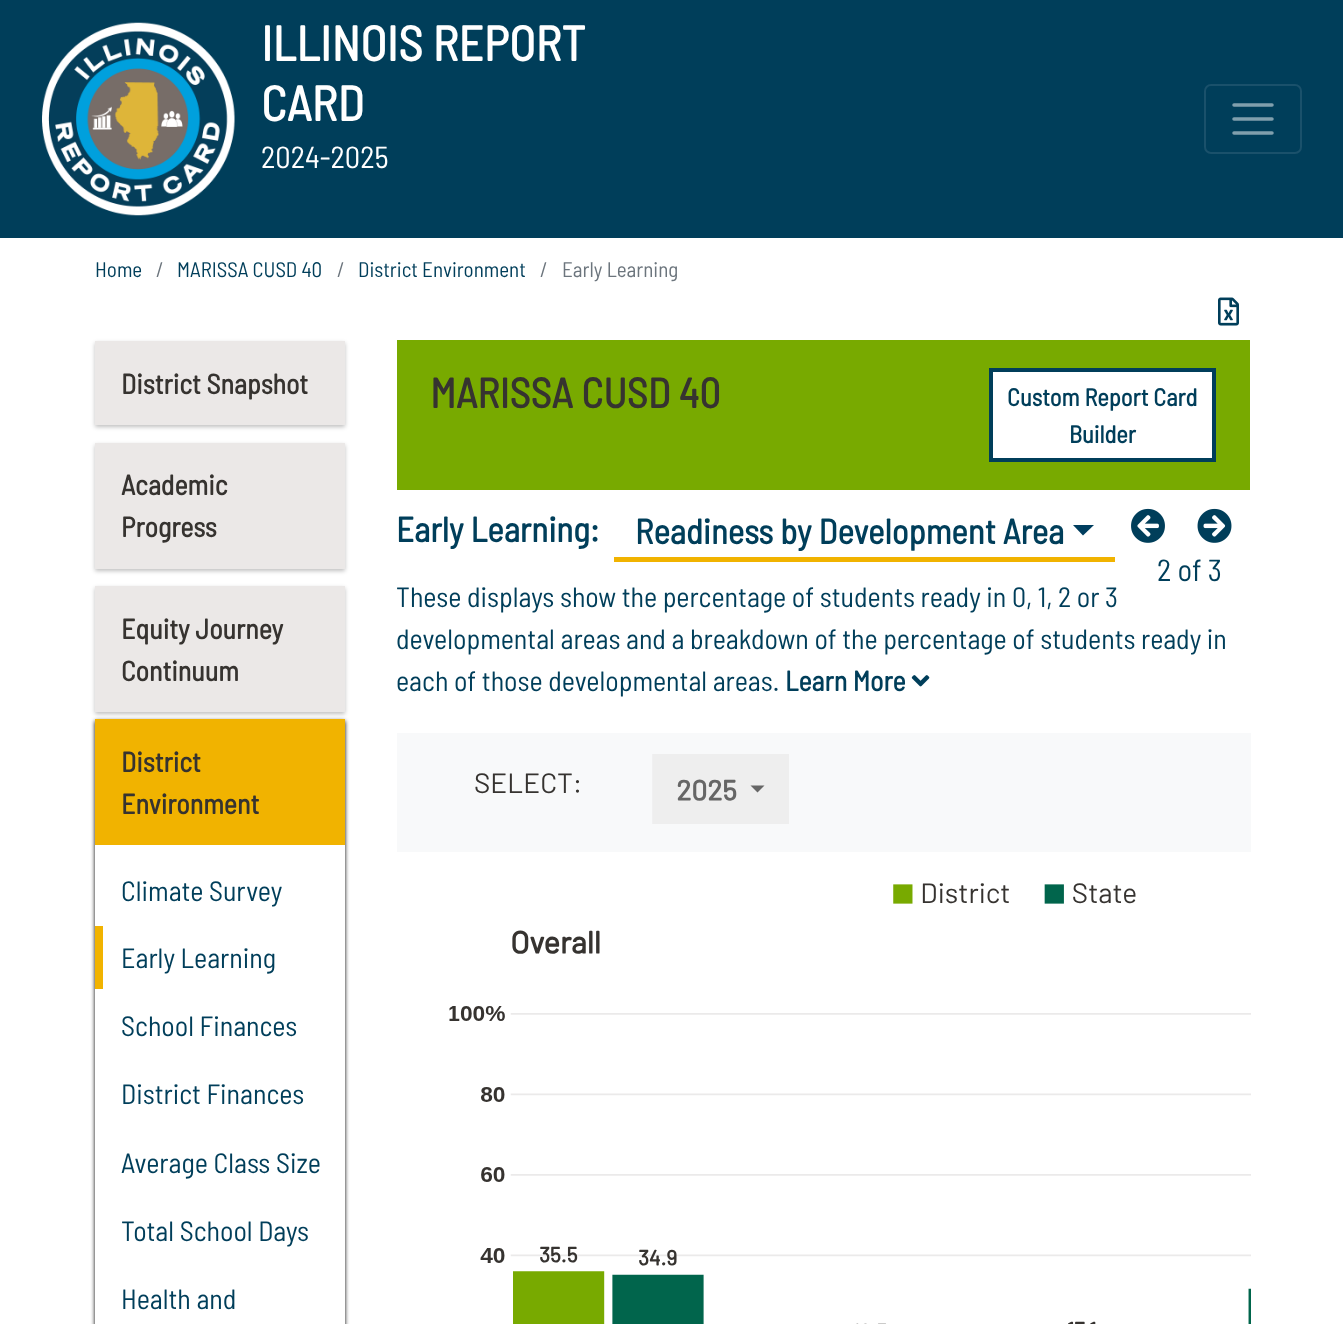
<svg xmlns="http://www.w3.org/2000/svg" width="1343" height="1324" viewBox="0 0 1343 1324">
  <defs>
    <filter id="blur1" x="-50%" y="-200%" width="200%" height="500%"><feGaussianBlur stdDeviation="2"/></filter>
  </defs>
  <rect width="100%" height="100%" fill="#ffffff"/>
  <rect x="0" y="0" width="1343" height="238" fill="#003e5a"/>
  <image x="42" y="22" width="193" height="194" href="img1.png"/>
  <text x="261" y="61" font-family="Barlow Semi Condensed" font-size="49" font-weight="bold" fill="#ffffff">ILLINOIS REPORT</text>
  <text x="261" y="121" font-family="Barlow Semi Condensed" font-size="49" font-weight="bold" fill="#ffffff">CARD</text>
  <text x="261" y="168" font-family="Barlow Semi Condensed" font-size="30.5" fill="#ffffff">2024-2025</text>
  <rect x="1205" y="85" width="96" height="68" rx="6" fill="none" stroke="#1a516b" stroke-width="2"/>
  <path d="M1234 105H1272M1234 119H1272M1234 133H1272" fill="none" stroke="#809fad" stroke-width="3.5" stroke-linecap="round"/>
  <text x="95" y="277" font-family="Barlow Semi Condensed" font-size="21" fill="#003e5a">Home</text>
  <text x="156" y="277" font-family="Barlow Semi Condensed" font-size="21" fill="#6c757d">/</text>
  <text x="177" y="277" font-family="Barlow Semi Condensed" font-size="21" fill="#003e5a">MARISSA CUSD 40</text>
  <text x="337" y="277" font-family="Barlow Semi Condensed" font-size="21" fill="#6c757d">/</text>
  <text x="358" y="277" font-family="Barlow Semi Condensed" font-size="21" fill="#003e5a">District Environment</text>
  <text x="540" y="277" font-family="Barlow Semi Condensed" font-size="21" fill="#6c757d">/</text>
  <text x="562" y="277" font-family="Barlow Semi Condensed" font-size="21" fill="#6c757d">Early Learning</text>
  <rect x="95" y="343" width="250" height="84" fill="#000000" fill-opacity="0.25" filter="url(#blur1)"/>
  <rect x="95" y="341" width="250" height="84" fill="#ebe8e7"/>
  <text x="121" y="394" font-family="Barlow Semi Condensed" font-size="28" font-weight="bold" fill="#363330">District Snapshot</text>
  <rect x="95" y="445" width="250" height="126" fill="#000000" fill-opacity="0.25" filter="url(#blur1)"/>
  <rect x="95" y="443" width="250" height="126" fill="#ebe8e7"/>
  <text x="121" y="495" font-family="Barlow Semi Condensed" font-size="28" font-weight="bold" fill="#363330">Academic</text>
  <text x="121" y="537" font-family="Barlow Semi Condensed" font-size="28" font-weight="bold" fill="#363330">Progress</text>
  <rect x="95" y="588" width="250" height="126" fill="#000000" fill-opacity="0.25" filter="url(#blur1)"/>
  <rect x="95" y="586" width="250" height="126" fill="#ebe8e7"/>
  <text x="121" y="639" font-family="Barlow Semi Condensed" font-size="28" font-weight="bold" fill="#363330">Equity Journey</text>
  <text x="121" y="681" font-family="Barlow Semi Condensed" font-size="28" font-weight="bold" fill="#363330">Continuum</text>
  <rect x="95" y="721" width="250" height="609" fill="#000000" filter="url(#blur1)"/>
  <rect x="95" y="845" width="250" height="479" fill="#ffffff"/>
  <rect x="95" y="719" width="250" height="126" fill="#f1b300"/>
  <text x="121" y="772" font-family="Barlow Semi Condensed" font-size="28" font-weight="bold" fill="#363330">District</text>
  <text x="121" y="814" font-family="Barlow Semi Condensed" font-size="28" font-weight="bold" fill="#363330">Environment</text>
  <text x="121" y="901" font-family="Barlow Semi Condensed" font-size="28" fill="#003e5a">Climate Survey</text>
  <rect x="95" y="926" width="8" height="63" fill="#f1b300"/>
  <text x="121" y="968" font-family="Barlow Semi Condensed" font-size="28" fill="#003e5a">Early Learning</text>
  <text x="121" y="1036" font-family="Barlow Semi Condensed" font-size="28" fill="#003e5a">School Finances</text>
  <text x="121" y="1104" font-family="Barlow Semi Condensed" font-size="28" fill="#003e5a">District Finances</text>
  <text x="121" y="1173" font-family="Barlow Semi Condensed" font-size="28" fill="#003e5a">Average Class Size</text>
  <text x="121" y="1241" font-family="Barlow Semi Condensed" font-size="28" fill="#003e5a">Total School Days</text>
  <text x="121" y="1309" font-family="Barlow Semi Condensed" font-size="28" fill="#003e5a">Health and</text>
  <image x="1218" y="297" width="21" height="29" href="img2.png"/>
  <rect x="400.5" y="343.5" width="846" height="143" fill="none" stroke="#78aa00" stroke-width="7"/>
  <rect x="404" y="347" width="839" height="136" fill="#78aa00"/>
  <text x="430" y="408" font-family="Barlow Semi Condensed" font-size="42" font-weight="bold" fill="#363330">MARISSA CUSD 40</text>
  <rect x="991" y="370" width="223" height="90" fill="#ffffff" stroke="#003e5a" stroke-width="4"/>
  <text x="1007" y="406" font-family="Barlow Semi Condensed" font-size="24.5" font-weight="bold" fill="#003e5a">Custom Report Card</text>
  <text x="1069" y="443" font-family="Barlow Semi Condensed" font-size="24.5" font-weight="bold" fill="#003e5a">Builder</text>
  <text x="396" y="542" font-family="Barlow Semi Condensed" font-size="35" font-weight="bold" fill="#003e5a">Early Learning:</text>
  <rect x="614" y="557" width="501" height="5" fill="#f1b300"/>
  <text x="635" y="544" font-family="Barlow Semi Condensed" font-size="35" font-weight="bold" fill="#003e5a">Readiness by Development Area</text>
  <path d="M1073 525H1094L1083 535.5Z" fill="#003e5f"/>
  <image x="1131" y="508" width="34" height="35" href="img3.png"/>
  <image x="1197" y="508" width="35" height="35" href="img4.png"/>
  <text x="1157" y="581" font-family="Barlow Semi Condensed" font-size="30.5" fill="#003e5a">2 of 3</text>
  <text x="396" y="607" font-family="Barlow Semi Condensed" font-size="28" fill="#003e5a">These displays show the percentage of students ready in 0, 1, 2 or 3</text>
  <text x="396" y="649" font-family="Barlow Semi Condensed" font-size="28" fill="#003e5a">developmental areas and a breakdown of the percentage of students ready in</text>
  <text x="396" y="691" font-family="Barlow Semi Condensed" font-size="28" fill="#003e5a">each of those developmental areas.</text>
  <text x="785" y="691" font-family="Barlow Semi Condensed" font-size="28" font-weight="bold" fill="#003e5a">Learn More</text>
  <image x="911" y="675" width="19" height="12" href="img5.png"/>
  <image x="397" y="719" width="854" height="605" href="img6.png"/>
</svg>
